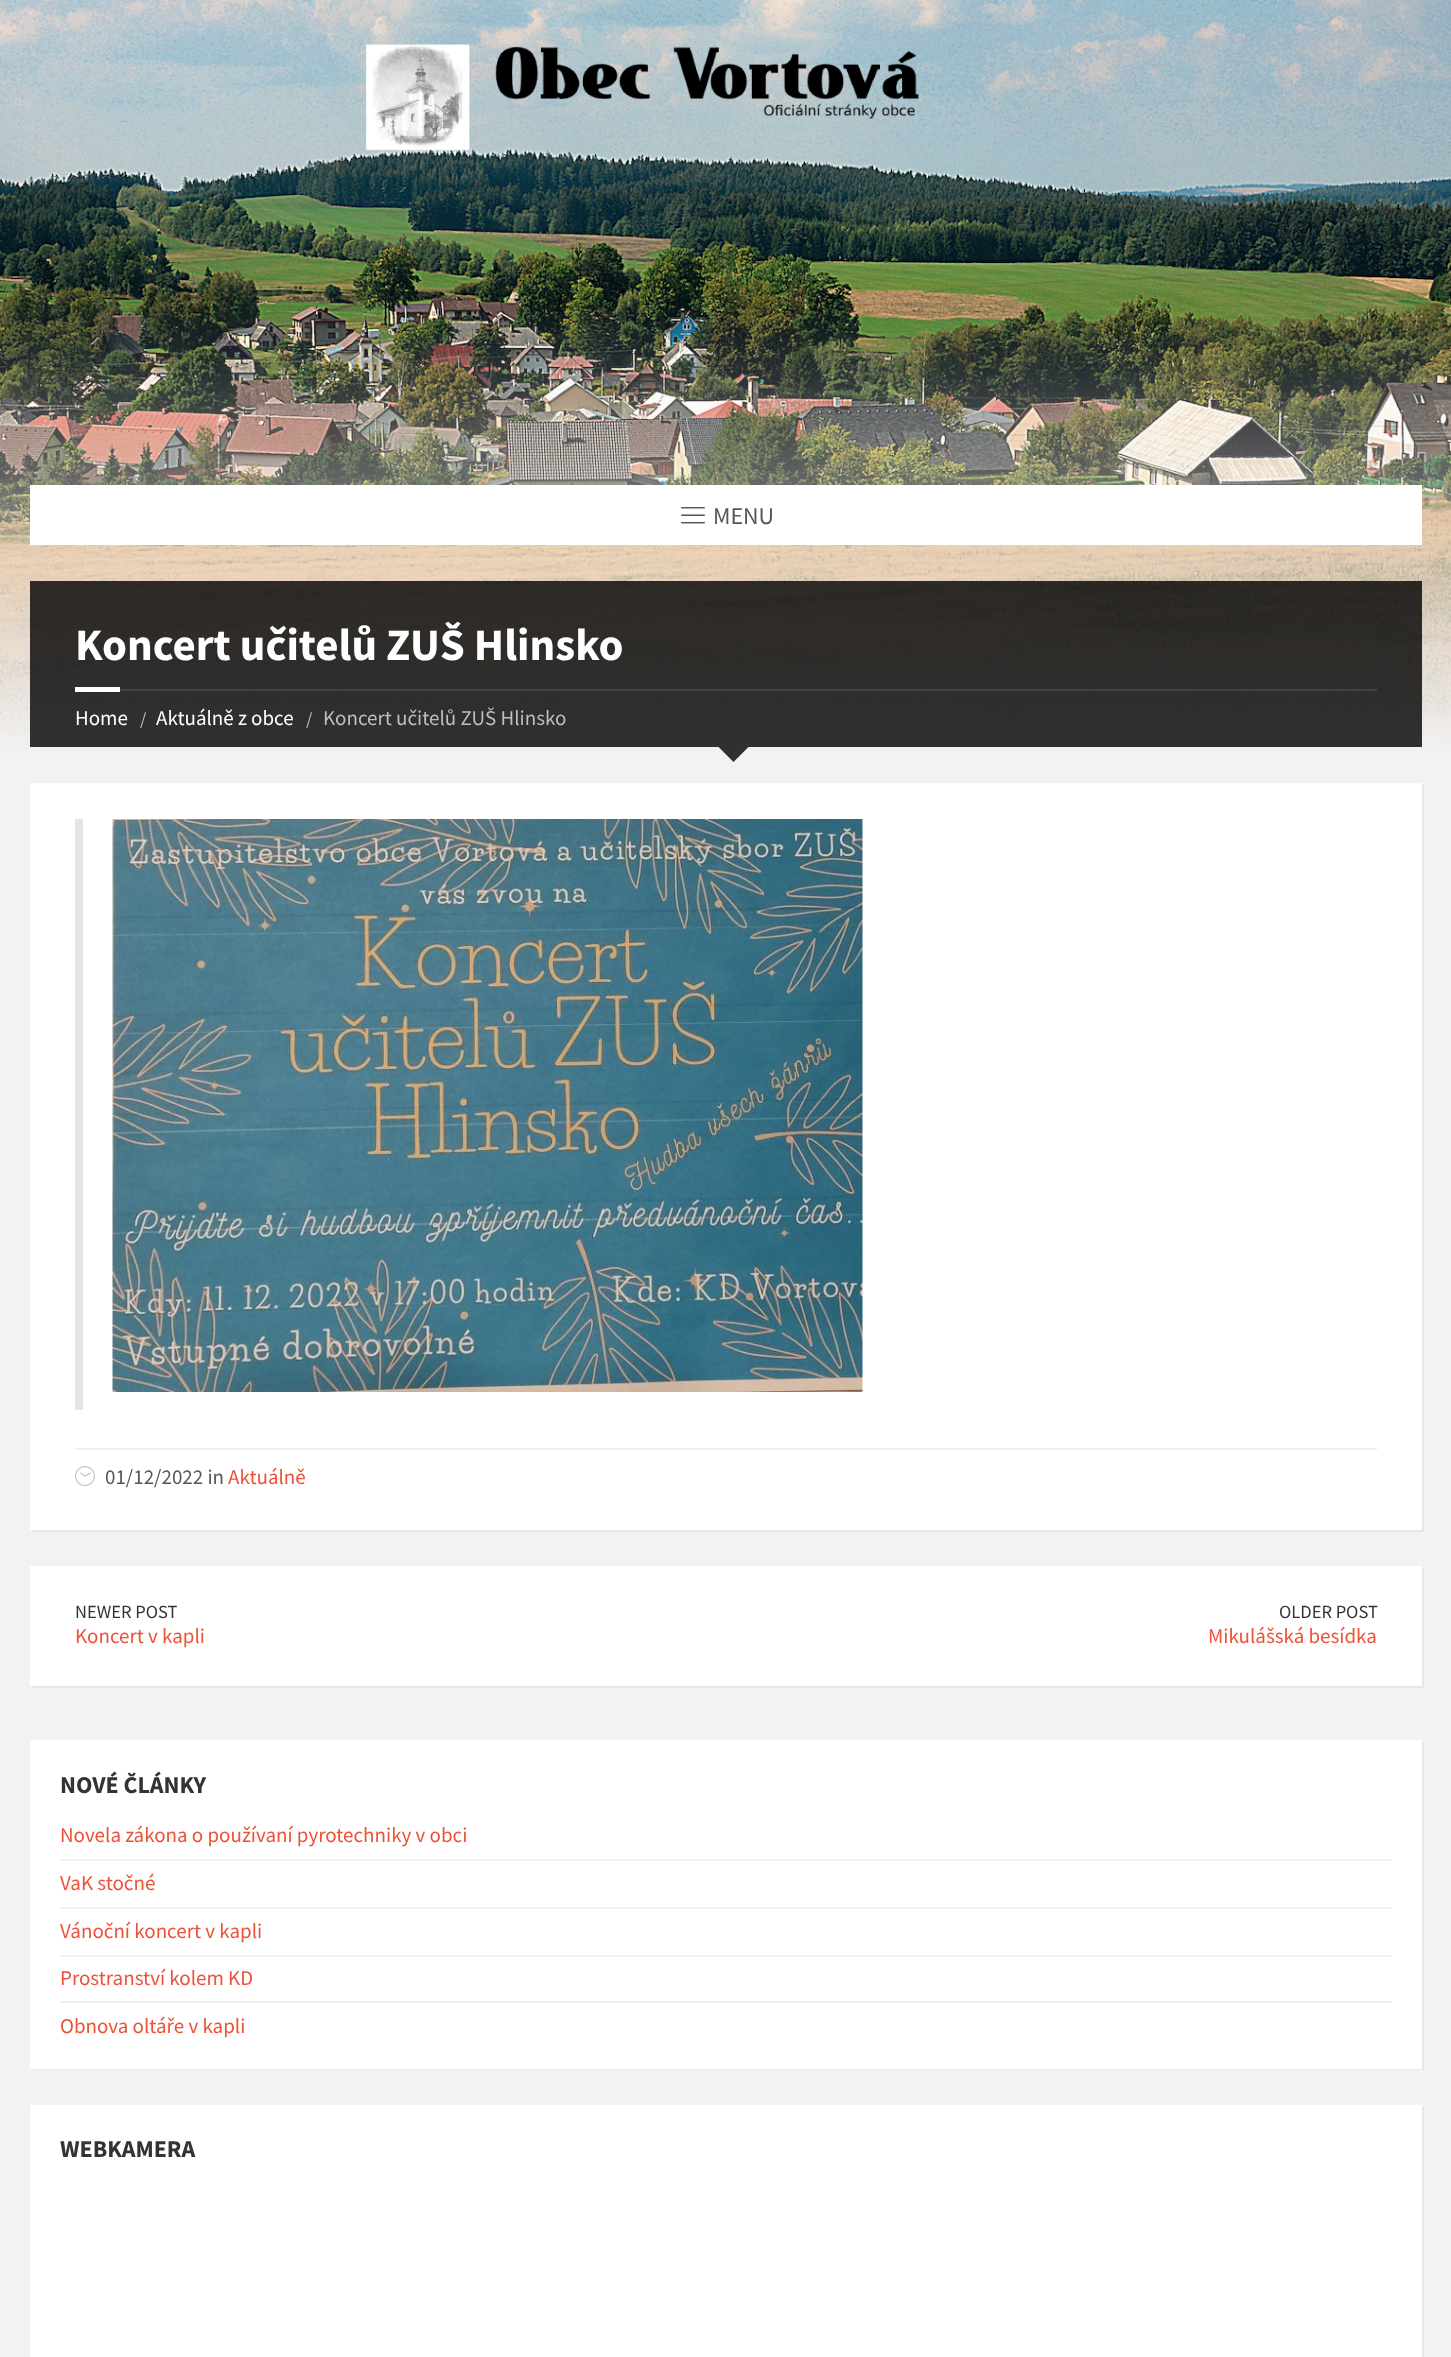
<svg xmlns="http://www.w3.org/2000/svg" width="1451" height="2357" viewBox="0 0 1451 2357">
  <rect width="100%" height="100%" fill="#f2f2f2"/>
  <image x="0" y="0" width="1451" height="750" href="img1.png"/>
  <image x="366" y="44" width="553" height="107" href="img2.png"/>
  <rect x="30" y="485" width="1392" height="60" fill="#ffffff"/>
  <image x="681" y="507" width="24" height="17" href="img3.png"/>
  <text x="713" y="524" font-family="Source Sans Pro" font-size="24" fill="#565656">MENU</text>
  <rect x="30" y="581" width="1392" height="166" fill="#000000" fill-opacity="0.8"/>
  <rect x="120" y="689" width="1257" height="2" fill="#ffffff" fill-opacity="0.1"/>
  <text x="75" y="660" font-family="Source Sans Pro" font-size="45" font-weight="bold" fill="#ffffff">Koncert učitelů ZUŠ Hlinsko</text>
  <rect x="75" y="687" width="45" height="5" fill="#ffffff"/>
  <text x="75" y="725" font-family="Source Sans Pro" font-size="21" fill="#ffffff">Home</text>
  <text x="140" y="725" font-family="Source Sans Pro" font-size="18" fill="#bebebe">/</text>
  <text x="156" y="725" font-family="Source Sans Pro" font-size="21" fill="#ffffff">Aktuálně z obce</text>
  <text x="306" y="725" font-family="Source Sans Pro" font-size="18" fill="#bebebe">/</text>
  <text x="323" y="725" font-family="Source Sans Pro" font-size="21" fill="#bebebe">Koncert učitelů ZUŠ Hlinsko</text>
  <path d="M718.5 747H748.5L733.5 762Z" fill="#303030"/>
  <path d="M32 1530V1532H1424V785H1422V1530Z" fill="#e6e6e6"/>
  <rect x="30" y="783" width="1392" height="747" fill="#ffffff"/>
  <rect x="75" y="819" width="8" height="591" fill="#e5e5e5"/>
  <image x="112" y="819" width="751" height="573" href="img4.png"/>
  <rect x="75" y="1448" width="1302" height="2" fill="#f0f0f0"/>
  <image x="75" y="1466" width="20" height="20" href="img5.png"/>
  <text x="105" y="1484" font-family="Source Sans Pro" font-size="21" fill="#565656">01/12/2022 in</text>
  <text x="228" y="1484" font-family="Source Sans Pro" font-size="21" fill="#ec5237">Aktuálně</text>
  <path d="M32 1686V1688H1424V1568H1422V1686Z" fill="#e6e6e6"/>
  <rect x="30" y="1566" width="1392" height="120" fill="#ffffff"/>
  <text x="75" y="1618" font-family="Source Sans Pro" font-size="18.5" fill="#333333">NEWER POST</text>
  <text x="75" y="1643" font-family="Source Sans Pro" font-size="21" fill="#ec5237">Koncert v kapli</text>
  <text x="1279" y="1618" font-family="Source Sans Pro" font-size="18.5" fill="#333333">OLDER POST</text>
  <text x="1208" y="1643" font-family="Source Sans Pro" font-size="21" fill="#ec5237">Mikulášská besídka</text>
  <path d="M32 2068V2070H1424V1742H1422V2068Z" fill="#e6e6e6"/>
  <rect x="30" y="1740" width="1392" height="329" fill="#ffffff"/>
  <text x="60" y="1793" font-family="Source Sans Pro" font-size="24" font-weight="bold" fill="#333333">NOVÉ ČLÁNKY</text>
  <text x="60" y="1842" font-family="Source Sans Pro" font-size="21" fill="#ec5237">Novela zákona o používaní pyrotechniky v obci</text>
  <rect x="60" y="1859" width="1332" height="2" fill="#f0f0f0"/>
  <text x="60" y="1890" font-family="Source Sans Pro" font-size="21" fill="#ec5237">VaK stočné</text>
  <rect x="60" y="1907" width="1332" height="2" fill="#f0f0f0"/>
  <text x="60" y="1938" font-family="Source Sans Pro" font-size="21" fill="#ec5237">Vánoční koncert v kapli</text>
  <rect x="60" y="1955" width="1332" height="2" fill="#f0f0f0"/>
  <text x="60" y="1985" font-family="Source Sans Pro" font-size="21" fill="#ec5237">Prostranství kolem KD</text>
  <rect x="60" y="2001" width="1332" height="2" fill="#f0f0f0"/>
  <text x="60" y="2033" font-family="Source Sans Pro" font-size="21" fill="#ec5237">Obnova oltáře v kapli</text>
  <path d="M32 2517V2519H1424V2106H1422V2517Z" fill="#e6e6e6"/>
  <rect x="30" y="2105" width="1392" height="252" fill="#ffffff"/>
  <text x="60" y="2157" font-family="Source Sans Pro" font-size="24" font-weight="bold" fill="#333333">WEBKAMERA</text>
</svg>
